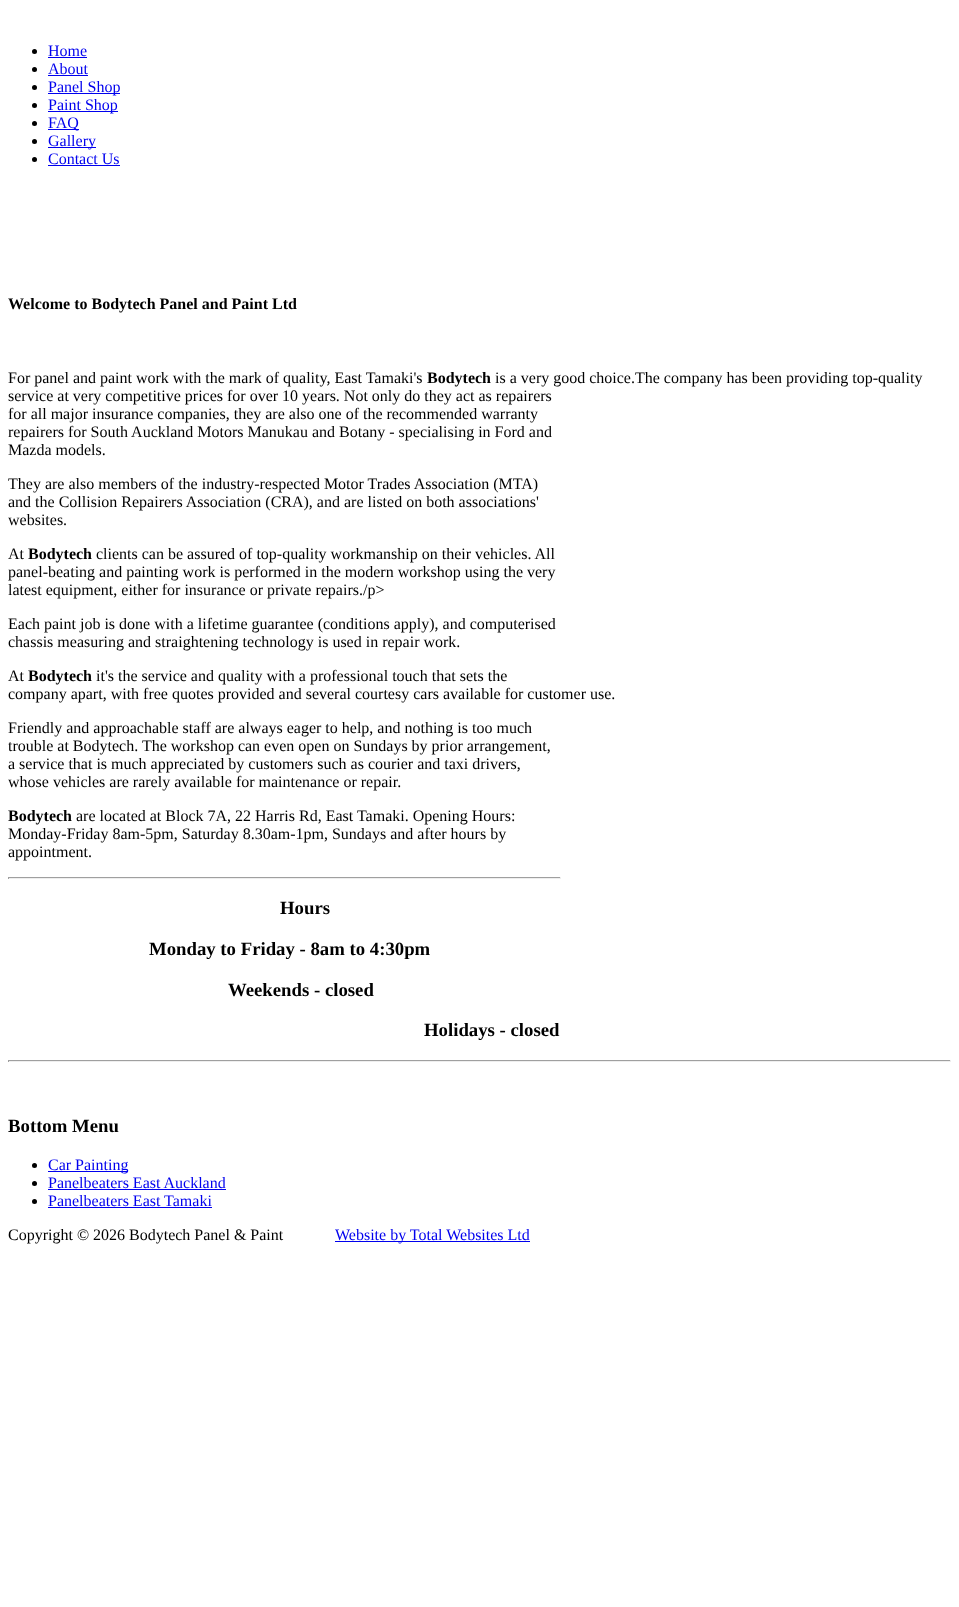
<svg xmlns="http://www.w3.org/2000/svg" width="959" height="1607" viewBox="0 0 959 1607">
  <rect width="100%" height="100%" fill="#ffffff"/>
  <circle cx="34.5" cy="51.5" r="2.5" fill="#000000"/>
  <text x="48" y="56" font-family="Liberation Serif" font-size="16" fill="#0000ee">Home</text>
  <rect x="48" y="57" width="39" height="1" fill="#0000ee"/>
  <circle cx="34.5" cy="69.5" r="2.5" fill="#000000"/>
  <text x="48" y="74" font-family="Liberation Serif" font-size="16" fill="#0000ee">About</text>
  <rect x="48" y="75" width="40" height="1" fill="#0000ee"/>
  <circle cx="34.5" cy="87.5" r="2.5" fill="#000000"/>
  <rect x="48" y="93" width="72" height="1" fill="#0000ee"/>
  <text x="48" y="92" font-family="Liberation Serif" font-size="16" fill="#0000ee">Panel Shop</text>
  <circle cx="34.5" cy="105.5" r="2.5" fill="#000000"/>
  <rect x="48" y="111" width="70" height="1" fill="#0000ee"/>
  <text x="48" y="110" font-family="Liberation Serif" font-size="16" fill="#0000ee">Paint Shop</text>
  <circle cx="34.5" cy="123.5" r="2.5" fill="#000000"/>
  <rect x="48" y="129" width="31" height="1" fill="#0000ee"/>
  <text x="48" y="128" font-family="Liberation Serif" font-size="16" fill="#0000ee">FAQ</text>
  <circle cx="34.5" cy="141.5" r="2.5" fill="#000000"/>
  <rect x="48" y="147" width="48" height="1" fill="#0000ee"/>
  <text x="48" y="146" font-family="Liberation Serif" font-size="16" fill="#0000ee">Gallery</text>
  <circle cx="34.5" cy="159.5" r="2.5" fill="#000000"/>
  <text x="48" y="164" font-family="Liberation Serif" font-size="16" fill="#0000ee">Contact Us</text>
  <rect x="48" y="165" width="72" height="1" fill="#0000ee"/>
  <text x="8" y="309" font-family="Liberation Serif" font-size="16" font-weight="bold" fill="#000000">Welcome to Bodytech Panel and Paint Ltd</text>
  <text x="8" y="383" font-family="Liberation Serif" font-size="16" fill="#000000">For panel and paint work with the mark of quality, East Tamaki's</text>
  <text x="427" y="383" font-family="Liberation Serif" font-size="16" font-weight="bold" fill="#000000">Bodytech</text>
  <text x="495" y="383" font-family="Liberation Serif" font-size="16" fill="#000000">is a very good choice.The company has been providing top-quality</text>
  <text x="8" y="401" font-family="Liberation Serif" font-size="16" fill="#000000">service at very competitive prices for over 10 years. Not only do they act as repairers</text>
  <text x="8" y="419" font-family="Liberation Serif" font-size="16" fill="#000000">for all major insurance companies, they are also one of the recommended warranty</text>
  <text x="8" y="437" font-family="Liberation Serif" font-size="16" fill="#000000">repairers for South Auckland Motors Manukau and Botany - specialising in Ford and</text>
  <text x="8" y="455" font-family="Liberation Serif" font-size="16" fill="#000000">Mazda models.</text>
  <text x="8" y="489" font-family="Liberation Serif" font-size="16" fill="#000000">They are also members of the industry-respected Motor Trades Association (MTA)</text>
  <text x="8" y="507" font-family="Liberation Serif" font-size="16" fill="#000000">and the Collision Repairers Association (CRA), and are listed on both associations'</text>
  <text x="8" y="525" font-family="Liberation Serif" font-size="16" fill="#000000">websites.</text>
  <text x="8" y="559" font-family="Liberation Serif" font-size="16" fill="#000000">At</text>
  <text x="28" y="559" font-family="Liberation Serif" font-size="16" font-weight="bold" fill="#000000">Bodytech</text>
  <text x="96" y="559" font-family="Liberation Serif" font-size="16" fill="#000000">clients can be assured of top-quality workmanship on their vehicles. All</text>
  <text x="8" y="577" font-family="Liberation Serif" font-size="16" fill="#000000">panel-beating and painting work is performed in the modern workshop using the very</text>
  <text x="8" y="595" font-family="Liberation Serif" font-size="16" fill="#000000">latest equipment, either for insurance or private repairs./p&gt;</text>
  <text x="8" y="629" font-family="Liberation Serif" font-size="16" fill="#000000">Each paint job is done with a lifetime guarantee (conditions apply), and computerised</text>
  <text x="8" y="647" font-family="Liberation Serif" font-size="16" fill="#000000">chassis measuring and straightening technology is used in repair work.</text>
  <text x="8" y="681" font-family="Liberation Serif" font-size="16" fill="#000000">At</text>
  <text x="28" y="681" font-family="Liberation Serif" font-size="16" font-weight="bold" fill="#000000">Bodytech</text>
  <text x="96" y="681" font-family="Liberation Serif" font-size="16" fill="#000000">it's the service and quality with a professional touch that sets the</text>
  <text x="8" y="699" font-family="Liberation Serif" font-size="16" fill="#000000">company apart, with free quotes provided and several courtesy cars available for customer use.</text>
  <text x="8" y="733" font-family="Liberation Serif" font-size="16" fill="#000000">Friendly and approachable staff are always eager to help, and nothing is too much</text>
  <text x="8" y="751" font-family="Liberation Serif" font-size="16" fill="#000000">trouble at Bodytech. The workshop can even open on Sundays by prior arrangement,</text>
  <text x="8" y="769" font-family="Liberation Serif" font-size="16" fill="#000000">a service that is much appreciated by customers such as courier and taxi drivers,</text>
  <text x="8" y="787" font-family="Liberation Serif" font-size="16" fill="#000000">whose vehicles are rarely available for maintenance or repair.</text>
  <text x="8" y="821" font-family="Liberation Serif" font-size="16" font-weight="bold" fill="#000000">Bodytech</text>
  <text x="76" y="821" font-family="Liberation Serif" font-size="16" fill="#000000">are located at Block 7A, 22 Harris Rd, East Tamaki. Opening Hours:</text>
  <text x="8" y="839" font-family="Liberation Serif" font-size="16" fill="#000000">Monday-Friday 8am-5pm, Saturday 8.30am-1pm, Sundays and after hours by</text>
  <text x="8" y="857" font-family="Liberation Serif" font-size="16" fill="#000000">appointment.</text>
  <rect x="8" y="877" width="553" height="1" fill="#9f9f9f"/>
  <rect x="560" y="877" width="1" height="2" fill="#eeeeee"/>
  <rect x="8" y="878" width="553" height="1" fill="#eeeeee"/>
  <rect x="8" y="877" width="1" height="2" fill="#9f9f9f"/>
  <text x="280" y="914" font-family="Liberation Serif" font-size="18.75" font-weight="bold" fill="#000000">Hours</text>
  <text x="149" y="955" font-family="Liberation Serif" font-size="18.75" font-weight="bold" fill="#000000">Monday to Friday - 8am to 4:30pm</text>
  <text x="228" y="996" font-family="Liberation Serif" font-size="18.75" font-weight="bold" fill="#000000">Weekends - closed</text>
  <text x="424" y="1036" font-family="Liberation Serif" font-size="18.75" font-weight="bold" fill="#000000">Holidays - closed</text>
  <rect x="8" y="1060" width="943" height="1" fill="#9f9f9f"/>
  <rect x="950" y="1060" width="1" height="2" fill="#eeeeee"/>
  <rect x="8" y="1061" width="943" height="1" fill="#eeeeee"/>
  <rect x="8" y="1060" width="1" height="2" fill="#9f9f9f"/>
  <text x="8" y="1132" font-family="Liberation Serif" font-size="18.75" font-weight="bold" fill="#000000">Bottom Menu</text>
  <circle cx="34.5" cy="1165.5" r="2.5" fill="#000000"/>
  <rect x="48" y="1171" width="80" height="1" fill="#0000ee"/>
  <text x="48" y="1170" font-family="Liberation Serif" font-size="16" fill="#0000ee">Car Painting</text>
  <circle cx="34.5" cy="1183.5" r="2.5" fill="#000000"/>
  <text x="48" y="1188" font-family="Liberation Serif" font-size="16" fill="#0000ee">Panelbeaters East Auckland</text>
  <rect x="48" y="1189" width="178" height="1" fill="#0000ee"/>
  <circle cx="34.5" cy="1201.5" r="2.5" fill="#000000"/>
  <text x="48" y="1206" font-family="Liberation Serif" font-size="16" fill="#0000ee">Panelbeaters East Tamaki</text>
  <rect x="48" y="1207" width="164" height="1" fill="#0000ee"/>
  <text x="8" y="1240" font-family="Liberation Serif" font-size="16" fill="#000000">Copyright © 2026 Bodytech Panel &amp; Paint</text>
  <rect x="335" y="1241" width="195" height="1" fill="#0000ee"/>
  <text x="335" y="1240" font-family="Liberation Serif" font-size="16" fill="#0000ee">Website by Total Websites Ltd</text>
</svg>
